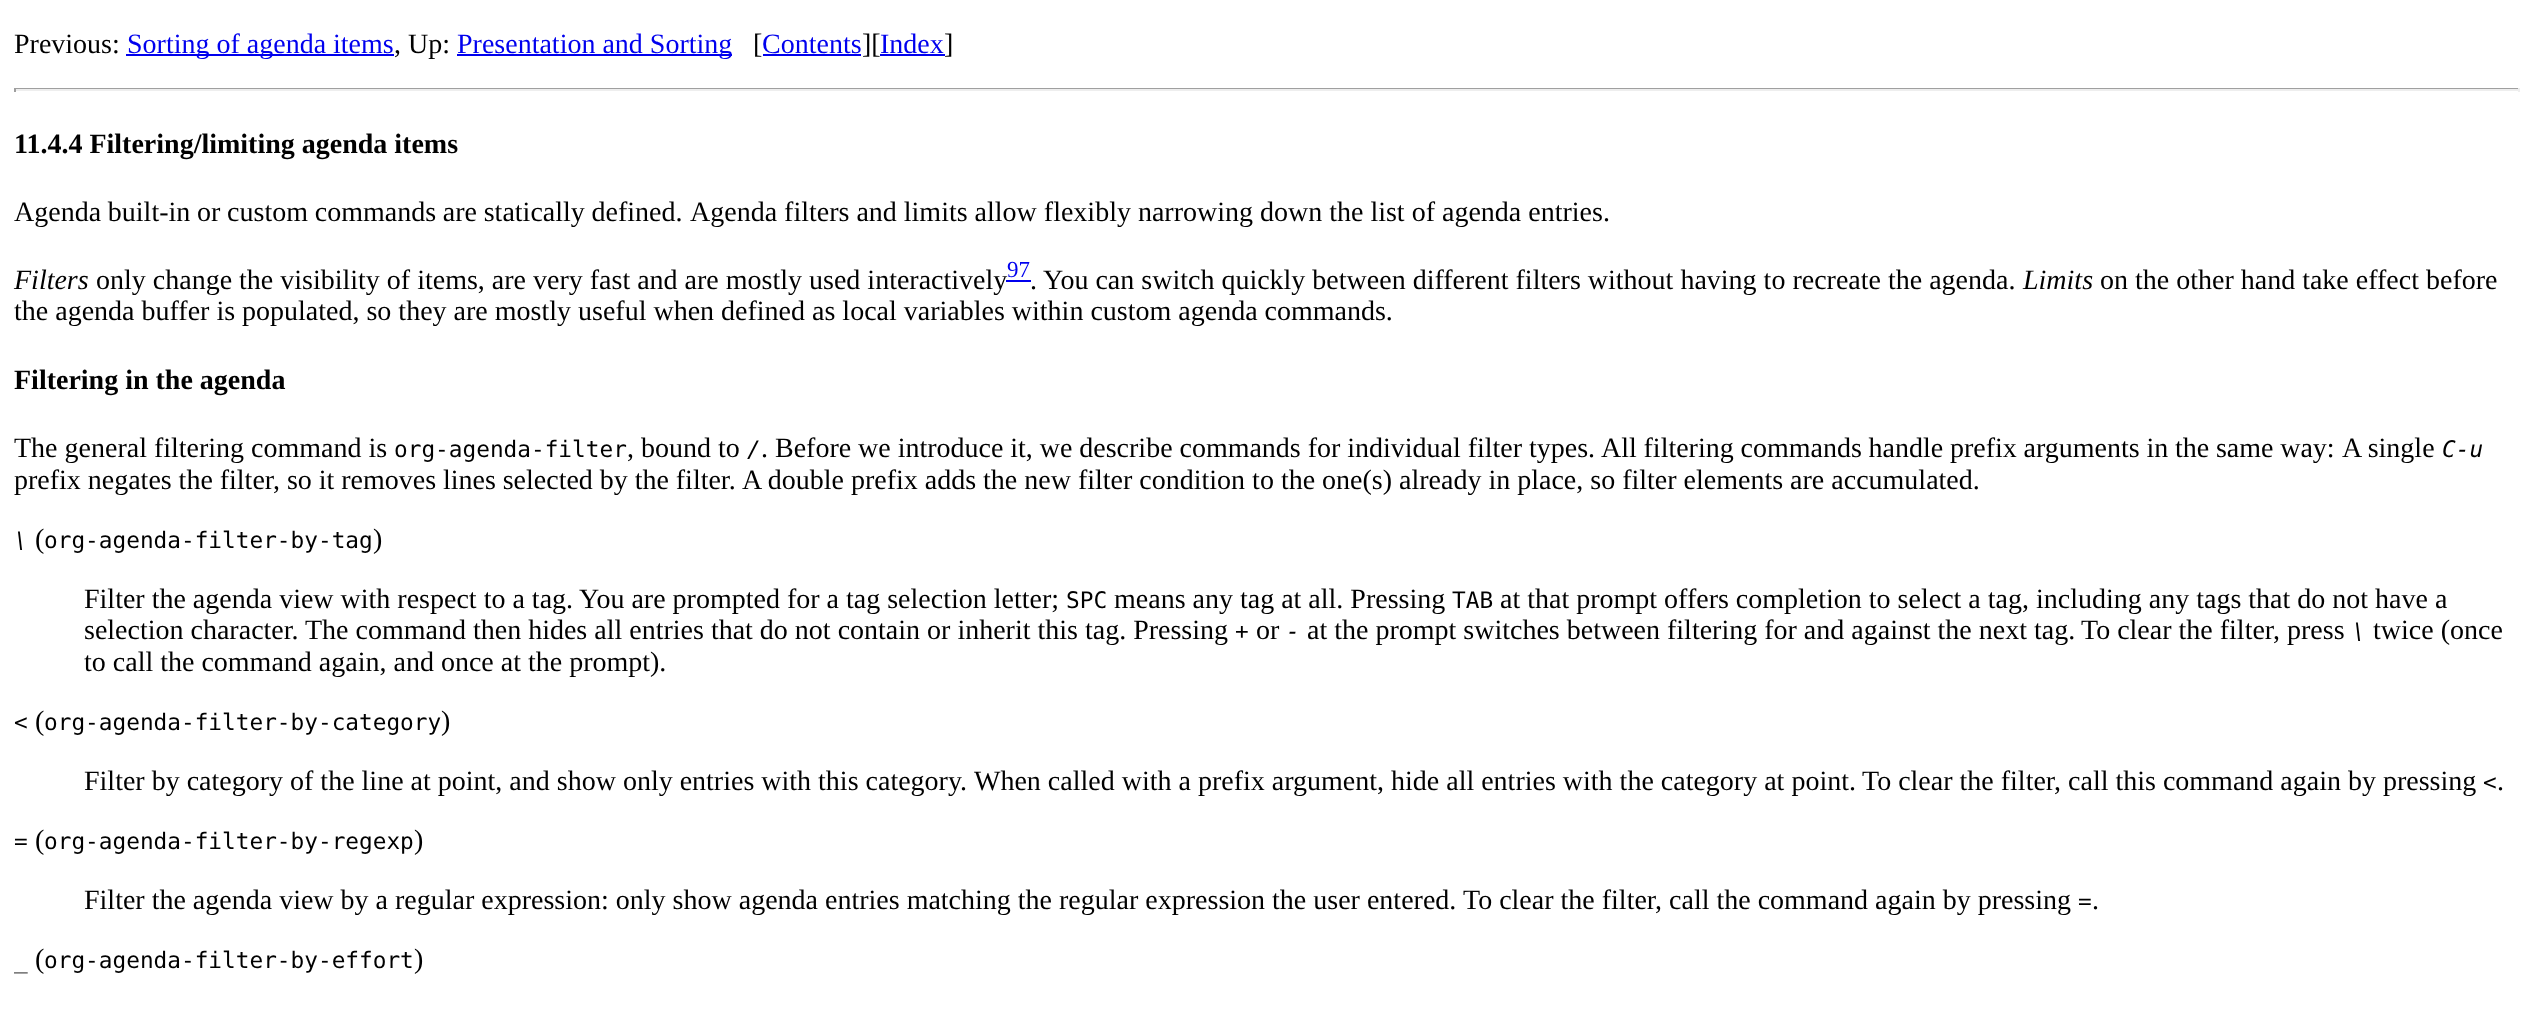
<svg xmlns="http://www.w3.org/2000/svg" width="2533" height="1015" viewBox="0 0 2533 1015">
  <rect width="100%" height="100%" fill="#ffffff"/>
  <text x="14" y="53" font-family="Liberation Serif" font-size="28" fill="#000000">Previous:</text>
  <rect x="126" y="54" width="268" height="2" fill="#0000ee"/>
  <text x="127" y="53" font-family="Liberation Serif" font-size="28" fill="#0000ee">Sorting of agenda items</text>
  <text x="394" y="53" font-family="Liberation Serif" font-size="28" fill="#000000">, Up:</text>
  <rect x="457" y="54" width="275" height="2" fill="#0000ee"/>
  <text x="457" y="53" font-family="Liberation Serif" font-size="28" fill="#0000ee">Presentation and Sorting</text>
  <text x="753" y="53" font-family="Liberation Serif" font-size="28" fill="#000000">[</text>
  <text x="762" y="53" font-family="Liberation Serif" font-size="28" fill="#0000ee">Contents</text>
  <rect x="763" y="54" width="98" height="2" fill="#0000ee"/>
  <text x="862" y="53" font-family="Liberation Serif" font-size="28" fill="#000000">][</text>
  <text x="880" y="53" font-family="Liberation Serif" font-size="28" fill="#0000ee">Index</text>
  <rect x="880" y="54" width="65" height="2" fill="#0000ee"/>
  <text x="944" y="53" font-family="Liberation Serif" font-size="28" fill="#000000">]</text>
  <rect x="14" y="88" width="2506" height="1" fill="#9f9f9f"/>
  <rect x="2518" y="88" width="2" height="4" fill="#eeeeee"/>
  <rect x="14" y="89" width="2506" height="2" fill="#eeeeee"/>
  <rect x="14" y="88" width="2" height="4" fill="#9f9f9f"/>
  <text x="14" y="153" font-family="Liberation Serif" font-size="28" font-weight="bold" fill="#000000">11.4.4 Filtering/limiting agenda items</text>
  <text x="14" y="221" word-spacing="-0.25" font-family="Liberation Serif" font-size="28" fill="#000000">Agenda built-in or custom commands are statically defined.</text>
  <text x="690" y="221" font-family="Liberation Serif" font-size="28" fill="#000000">Agenda filters and limits allow flexibly narrowing down the list of agenda entries.</text>
  <text x="14" y="289" font-family="Liberation Serif" font-size="28" font-style="italic" fill="#000000">Filters</text>
  <text x="96" y="289" font-family="Liberation Serif" font-size="28" fill="#000000">only change the visibility of items, are very fast and are mostly used interactively</text>
  <text x="1007" y="277" font-family="Liberation Serif" font-size="23" fill="#0000ee">97</text>
  <rect x="1006" y="280" width="25" height="2" fill="#0000ee"/>
  <text x="1030" y="289" font-family="Liberation Serif" font-size="28" fill="#000000">.</text>
  <text x="1043" y="289" font-family="Liberation Serif" font-size="28" fill="#000000">You can switch quickly between different filters without having to recreate the agenda.</text>
  <text x="2023" y="289" font-family="Liberation Serif" font-size="28" font-style="italic" fill="#000000">Limits</text>
  <text x="2100" y="289" font-family="Liberation Serif" font-size="28" fill="#000000">on the other hand take effect before</text>
  <text x="14" y="320" font-family="Liberation Serif" font-size="28" fill="#000000">the agenda buffer is populated, so they are mostly useful when defined as local variables within custom agenda commands.</text>
  <text x="14" y="389" font-family="Liberation Serif" font-size="28" font-weight="bold" fill="#000000">Filtering in the agenda</text>
  <text x="14" y="457" font-family="Liberation Serif" font-size="28" fill="#000000">The general filtering command is</text>
  <text x="394" y="457" font-family="DejaVu Sans Mono" font-size="22.75" fill="#000000">org-agenda-filter</text>
  <text x="627" y="457" font-family="Liberation Serif" font-size="28" fill="#000000">, bound to</text>
  <text x="747" y="457" font-family="DejaVu Sans Mono" font-size="22.75" font-style="italic" fill="#000000">/</text>
  <text x="761" y="457" font-family="Liberation Serif" font-size="28" fill="#000000">.</text>
  <text x="775" y="457" word-spacing="-0.1" font-family="Liberation Serif" font-size="28" fill="#000000">Before we introduce it, we describe commands for individual filter types.</text>
  <text x="1601" y="457" word-spacing="-0.25" font-family="Liberation Serif" font-size="28" fill="#000000">All filtering commands handle prefix arguments in the same way:</text>
  <text x="2342" y="457" font-family="Liberation Serif" font-size="28" fill="#000000">A single</text>
  <text x="2442" y="457" font-family="DejaVu Sans Mono" font-size="22.75" font-style="italic" fill="#000000">C-u</text>
  <text x="14" y="489" word-spacing="-0.1" font-family="Liberation Serif" font-size="28" fill="#000000">prefix negates the filter, so it removes lines selected by the filter.</text>
  <text x="742" y="489" font-family="Liberation Serif" font-size="28" fill="#000000">A double prefix adds the new filter condition to the one(s) already in place, so filter elements are accumulated.</text>
  <text x="14" y="548" font-family="DejaVu Sans Mono" font-size="22.75" font-style="italic" fill="#000000">\</text>
  <text x="35" y="548" font-family="Liberation Serif" font-size="28" fill="#000000">(</text>
  <text x="44" y="548" font-family="DejaVu Sans Mono" font-size="22.75" fill="#000000">org-agenda-filter-by-tag</text>
  <text x="373" y="548" font-family="Liberation Serif" font-size="28" fill="#000000">)</text>
  <text x="84" y="608" font-family="Liberation Serif" font-size="28" fill="#000000">Filter the agenda view with respect to a tag. You are prompted for a tag selection letter;</text>
  <text x="1066" y="608" font-family="DejaVu Sans Mono" font-size="22.75" fill="#000000">SPC</text>
  <text x="1114" y="608" font-family="Liberation Serif" font-size="28" fill="#000000">means any tag at all. Pressing</text>
  <text x="1452" y="608" font-family="DejaVu Sans Mono" font-size="22.75" fill="#000000">TAB</text>
  <text x="1500" y="608" font-family="Liberation Serif" font-size="28" fill="#000000">at that prompt offers completion to select a tag, including any tags that do not have a</text>
  <text x="84" y="639" font-family="Liberation Serif" font-size="28" fill="#000000">selection character.</text>
  <text x="305" y="639" font-family="Liberation Serif" font-size="28" fill="#000000">The command then hides all entries that do not contain or inherit this tag. Pressing</text>
  <text x="1235" y="639" font-family="DejaVu Sans Mono" font-size="22.75" font-style="italic" fill="#000000">+</text>
  <text x="1256" y="639" font-family="Liberation Serif" font-size="28" fill="#000000">or</text>
  <text x="1286" y="639" font-family="DejaVu Sans Mono" font-size="22.75" font-style="italic" fill="#000000">-</text>
  <text x="1307" y="639" font-family="Liberation Serif" font-size="28" fill="#000000">at the prompt switches between filtering for and against the next tag.</text>
  <text x="2081" y="639" font-family="Liberation Serif" font-size="28" fill="#000000">To clear the filter, press</text>
  <text x="2352" y="639" font-family="DejaVu Sans Mono" font-size="22.75" font-style="italic" fill="#000000">\</text>
  <text x="2373" y="639" font-family="Liberation Serif" font-size="28" fill="#000000">twice (once</text>
  <text x="84" y="671" font-family="Liberation Serif" font-size="28" fill="#000000">to call the command again, and once at the prompt).</text>
  <text x="14" y="730" font-family="DejaVu Sans Mono" font-size="22.75" font-style="italic" fill="#000000">&lt;</text>
  <text x="35" y="730" font-family="Liberation Serif" font-size="28" fill="#000000">(</text>
  <text x="44" y="730" font-family="DejaVu Sans Mono" font-size="22.75" fill="#000000">org-agenda-filter-by-category</text>
  <text x="441" y="730" font-family="Liberation Serif" font-size="28" fill="#000000">)</text>
  <text x="84" y="790" font-family="Liberation Serif" font-size="28" fill="#000000">Filter by category of the line at point, and show only entries with this category.</text>
  <text x="974" y="790" font-family="Liberation Serif" font-size="28" fill="#000000">When called with a prefix argument, hide all entries with the category at point.</text>
  <text x="1862" y="790" font-family="Liberation Serif" font-size="28" fill="#000000">To clear the filter, call this command again by pressing</text>
  <text x="2483" y="790" font-family="DejaVu Sans Mono" font-size="22.75" font-style="italic" fill="#000000">&lt;</text>
  <text x="2497" y="790" font-family="Liberation Serif" font-size="28" fill="#000000">.</text>
  <text x="14" y="849" font-family="DejaVu Sans Mono" font-size="22.75" font-style="italic" fill="#000000">=</text>
  <text x="35" y="849" font-family="Liberation Serif" font-size="28" fill="#000000">(</text>
  <text x="44" y="849" font-family="DejaVu Sans Mono" font-size="22.75" fill="#000000">org-agenda-filter-by-regexp</text>
  <text x="414" y="849" font-family="Liberation Serif" font-size="28" fill="#000000">)</text>
  <text x="84" y="909" font-family="Liberation Serif" font-size="28" fill="#000000">Filter the agenda view by a regular expression: only show agenda entries matching the regular expression the user entered.</text>
  <text x="1463" y="909" font-family="Liberation Serif" font-size="28" fill="#000000">To clear the filter, call the command again by pressing</text>
  <text x="2078" y="909" font-family="DejaVu Sans Mono" font-size="22.75" font-style="italic" fill="#000000">=</text>
  <text x="2092" y="909" font-family="Liberation Serif" font-size="28" fill="#000000">.</text>
  <text x="14" y="968" font-family="DejaVu Sans Mono" font-size="22.75" font-style="italic" fill="#000000">_</text>
  <text x="35" y="968" font-family="Liberation Serif" font-size="28" fill="#000000">(</text>
  <text x="44" y="968" font-family="DejaVu Sans Mono" font-size="22.75" fill="#000000">org-agenda-filter-by-effort</text>
  <text x="414" y="968" font-family="Liberation Serif" font-size="28" fill="#000000">)</text>
</svg>
